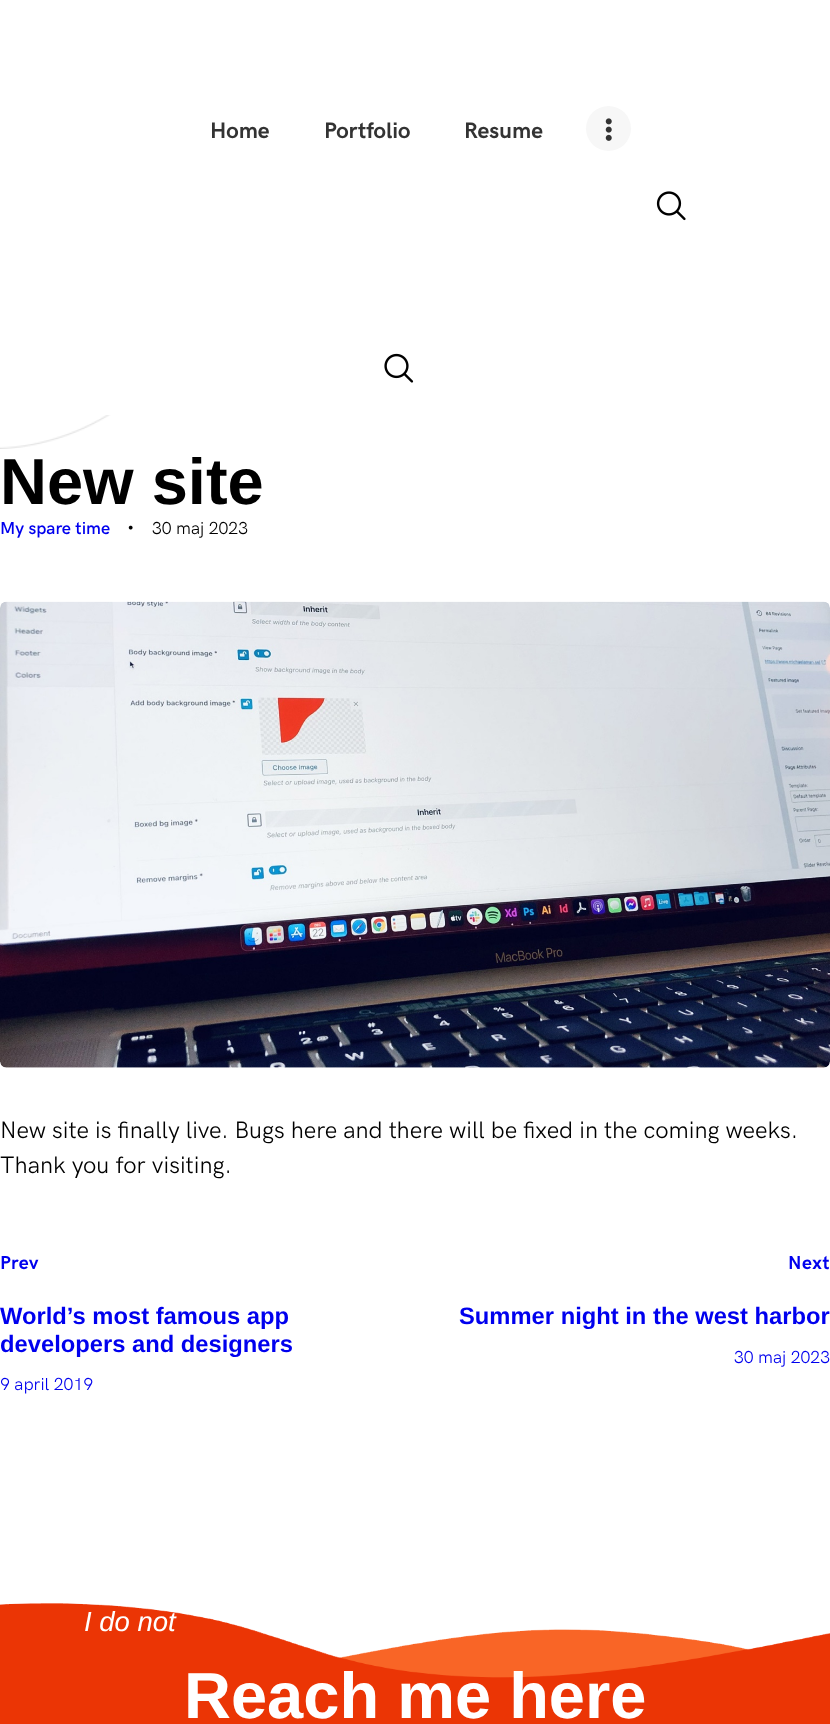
<svg xmlns="http://www.w3.org/2000/svg" width="830" height="1724" viewBox="0 0 830 1724">
  <rect width="100%" height="100%" fill="#ffffff"/>
  <image x="0" y="415" width="111" height="34" href="img1.png"/>
  <text x="210" y="138" font-family="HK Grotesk" font-size="22.5" font-weight="bold" fill="#333333">Home</text>
  <text x="324" y="138" font-family="HK Grotesk" font-size="22.5" font-weight="bold" fill="#333333">Portfolio</text>
  <text x="464" y="138" font-family="HK Grotesk" font-size="22.5" font-weight="bold" fill="#333333">Resume</text>
  <circle cx="608.5" cy="128.5" r="22.5" fill="#f7f7f7"/>
  <image x="605" y="118" width="7" height="23" href="img2.png"/>
  <image x="656" y="191" width="30" height="30" href="img3.png"/>
  <image x="384" y="353" width="30" height="30" href="img4.png"/>
  <text x="0" y="504" font-family="Liberation Sans" font-size="65" font-weight="bold" fill="#000000">New site</text>
  <text x="0" y="534" font-family="HK Grotesk" font-size="17.5" font-weight="600" fill="#0000ee">My spare time</text>
  <image x="128" y="525" width="5" height="5" href="img5.png"/>
  <text x="152" y="534" font-family="HK Grotesk" font-size="17.5" fill="#000000">30 maj 2023</text>
  <image x="0" y="601" width="830" height="467" href="img6.png"/>
  <text x="0" y="1138" font-family="HK Grotesk" font-size="23.75" fill="#000000">New site is finally live. Bugs here and there will be fixed in the coming weeks.</text>
  <text x="0" y="1173" font-family="HK Grotesk" font-size="23.75" fill="#000000">Thank you for visiting.</text>
  <text x="0" y="1269" font-family="HK Grotesk" font-size="19" font-weight="bold" letter-spacing="0.5" fill="#0000ee">Prev</text>
  <text x="0" y="1324" font-family="Liberation Sans" font-size="23.75" font-weight="bold" fill="#0000ee">World’s most famous app</text>
  <text x="0" y="1352" font-family="Liberation Sans" font-size="23.75" font-weight="bold" fill="#0000ee">developers and designers</text>
  <text x="0" y="1390" font-family="HK Grotesk" font-size="17.5" fill="#0000ee">9 april 2019</text>
  <text x="788" y="1269" font-family="HK Grotesk" font-size="19" font-weight="bold" letter-spacing="0.5" fill="#0000ee">Next</text>
  <text x="459" y="1324" font-family="Liberation Sans" font-size="23.75" font-weight="bold" fill="#0000ee">Summer night in the west harbor</text>
  <text x="734" y="1363" font-family="HK Grotesk" font-size="17.5" fill="#0000ee">30 maj 2023</text>
  <image x="0" y="1603" width="830" height="121" href="img7.png"/>
  <text x="84" y="1631" font-family="Liberation Sans" font-size="27.5" font-style="italic" fill="#ffffff">I do not</text>
  <text x="184" y="1718" font-family="Liberation Sans" font-size="65" font-weight="bold" fill="#ffffff">Reach me here</text>
</svg>
